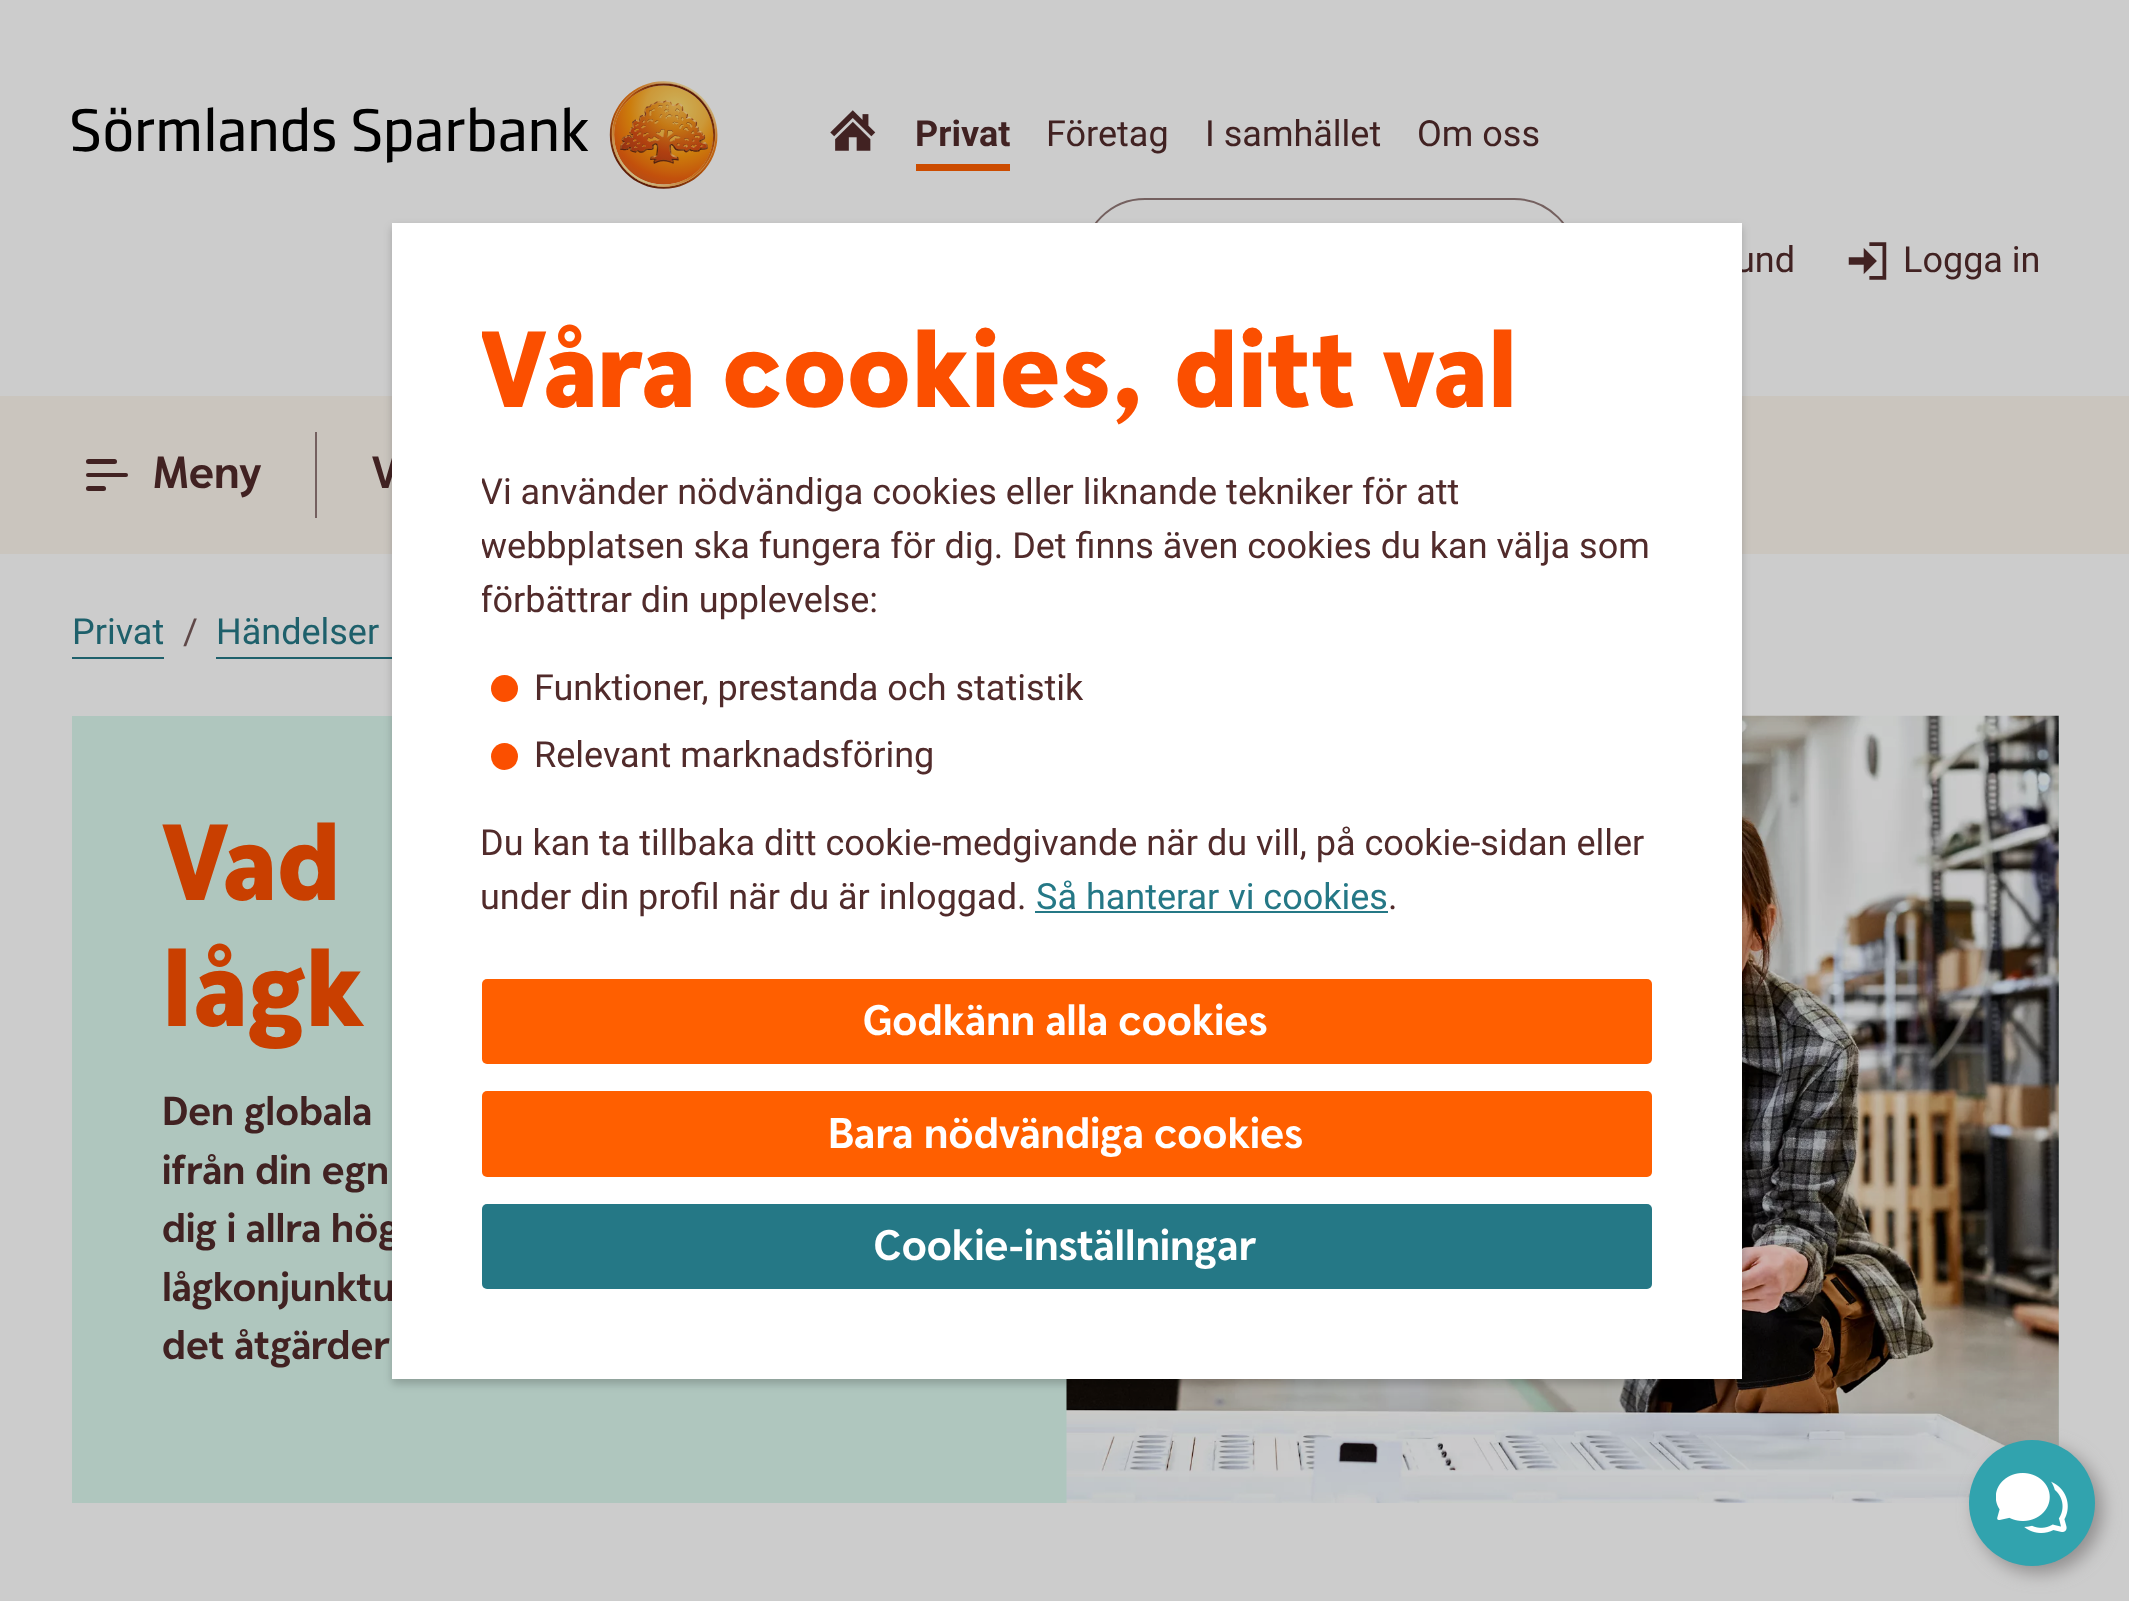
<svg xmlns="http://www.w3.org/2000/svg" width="2129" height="1601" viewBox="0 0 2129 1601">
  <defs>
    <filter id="blur1" x="-50%" y="-200%" width="200%" height="500%"><feGaussianBlur stdDeviation="4.5"/></filter>
    <clipPath id="clip1"><rect x="482" y="313" width="1170" height="612"/></clipPath>
    <filter id="blur2" x="-50%" y="-200%" width="200%" height="500%"><feGaussianBlur stdDeviation="9"/></filter>
  </defs>
  <rect width="100%" height="100%" fill="#cccccc"/>
  <image x="72" y="81" width="646" height="108" href="img1.png"/>
  <image x="830" y="110" width="46" height="41" href="img2.png"/>
  <rect x="916" y="164" width="94" height="7" fill="#cc4c00"/>
  <text x="915" y="146" font-family="Roboto" font-size="36" font-weight="bold" fill="#412222">Privat</text>
  <text x="1046" y="146" font-family="Roboto" font-size="36" fill="#412222">Företag</text>
  <text x="1205" y="146" font-family="Roboto" font-size="36" fill="#412222">I samhället</text>
  <text x="1417" y="146" font-family="Roboto" font-size="36" fill="#412222">Om oss</text>
  <rect x="1083" y="199" width="493" height="124" rx="62" fill="none" stroke="#74605f" stroke-width="2"/>
  <text x="1735" y="272" font-family="Roboto" font-size="36" fill="#412222">und</text>
  <image x="1848" y="242" width="39" height="38" href="img3.png"/>
  <text x="1903" y="272" font-family="Roboto" font-size="36" fill="#412222">Logga in</text>
  <rect x="0" y="396" width="2129" height="158" fill="#cac5be"/>
  <rect x="86" y="459" width="31" height="5" rx="2.5" fill="#412222"/>
  <rect x="86" y="473" width="42" height="4" rx="2" fill="#412222"/>
  <rect x="86" y="486" width="20" height="5" rx="2.5" fill="#412222"/>
  <text x="153" y="488" font-family="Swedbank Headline" font-size="45" font-weight="bold" fill="#412222">Meny</text>
  <rect x="315" y="432" width="2" height="86" fill="#74605f"/>
  <text x="372" y="488" font-family="Swedbank Headline" font-size="45" font-weight="bold" fill="#412222">V</text>
  <text x="72" y="644" font-family="Roboto" font-size="36" fill="#1e606b">Privat</text>
  <rect x="72" y="657" width="92" height="2" fill="#1e606b"/>
  <text x="183" y="644" font-family="Roboto" font-size="36" fill="#5f4848">/</text>
  <text x="216" y="644" font-family="Roboto" font-size="36" fill="#1e606b">Händelser</text>
  <rect x="216" y="657" width="176" height="2" fill="#1e606b"/>
  <rect x="72" y="716" width="1987" height="787" fill="#afc6be"/>
  <text x="162" y="900" font-family="Swedbank Headline" font-size="108" font-weight="900" fill="#c93f00">Vad</text>
  <text x="162" y="1026" font-family="Swedbank Headline" font-size="108" font-weight="900" fill="#c93f00">lågk</text>
  <text x="162" y="1125" font-family="Swedbank Headline" font-size="40.5" font-weight="bold" fill="#412222">Den globala</text>
  <text x="162" y="1184" font-family="Swedbank Headline" font-size="40.5" font-weight="bold" fill="#412222">ifrån din egn</text>
  <text x="162" y="1242" font-family="Swedbank Headline" font-size="40.5" font-weight="bold" fill="#412222">dig i allra hög</text>
  <text x="162" y="1301" font-family="Swedbank Headline" font-size="40.5" font-weight="bold" fill="#412222">lågkonjunktu</text>
  <text x="162" y="1359" font-family="Swedbank Headline" font-size="40.5" font-weight="bold" fill="#412222">det åtgärder</text>
  <image x="1066" y="715" width="993" height="788" href="img4.png"/>
  <rect x="392" y="227" width="1350" height="1157" fill="#000000" fill-opacity="0.2" filter="url(#blur1)"/>
  <rect x="392" y="223" width="1350" height="1156" fill="#ffffff"/>
  <g clip-path="url(#clip1)">
    <text x="480" y="407" font-family="Swedbank Headline" font-size="108" font-weight="900" fill="#fb4f00">Våra cookies, ditt val</text>
    <text x="480" y="504" font-family="Roboto" font-size="36" fill="#512b2b">Vi använder nödvändiga cookies eller liknande tekniker för att</text>
    <text x="480" y="558" font-family="Roboto" font-size="36" fill="#512b2b">webbplatsen ska fungera för dig. Det finns även cookies du kan välja som</text>
    <text x="480" y="612" font-family="Roboto" font-size="36" fill="#512b2b">förbättrar din upplevelse:</text>
  </g>
  <circle cx="504.5" cy="688.5" r="13.5" fill="#fb4f00"/>
  <text x="534" y="700" font-family="Roboto" font-size="36" fill="#512b2b">Funktioner, prestanda och statistik</text>
  <circle cx="504.5" cy="756.5" r="13.5" fill="#fb4f00"/>
  <text x="534" y="767" font-family="Roboto" font-size="36" fill="#512b2b">Relevant marknadsföring</text>
  <text x="480" y="855" font-family="Roboto" font-size="36" fill="#512b2b">Du kan ta tillbaka ditt cookie-medgivande när du vill, på cookie-sidan eller</text>
  <text x="480" y="909" font-family="Roboto" font-size="36" fill="#512b2b">under din profil när du är inloggad.</text>
  <text x="1036" y="909" font-family="Roboto" font-size="36" fill="#257886">Så hanterar vi cookies</text>
  <rect x="1035" y="911" width="353" height="2" fill="#257886"/>
  <text x="1388" y="909" font-family="Roboto" font-size="36" fill="#512b2b">.</text>
  <rect x="482" y="979" width="1170" height="85" rx="5" fill="#ff5f00"/>
  <text x="863" y="1035" font-family="Swedbank Headline" font-size="42.75" font-weight="bold" fill="#ffffff">Godkänn alla cookies</text>
  <rect x="482" y="1091" width="1170" height="86" rx="5" fill="#ff5f00"/>
  <text x="828" y="1148" font-family="Swedbank Headline" font-size="42.75" font-weight="bold" fill="#ffffff">Bara nödvändiga cookies</text>
  <rect x="482" y="1204" width="1170" height="85" rx="5" fill="#257886"/>
  <text x="874" y="1260" font-family="Swedbank Headline" font-size="42.75" font-weight="bold" fill="#ffffff">Cookie-inställningar</text>
  <rect x="1976" y="1447" width="126" height="126" rx="63" fill="#908e8e" filter="url(#blur2)"/>
  <circle cx="2032" cy="1503" r="63" fill="#31a3ae"/>
  <image x="1996" y="1473" width="72" height="60" href="img5.png"/>
</svg>
